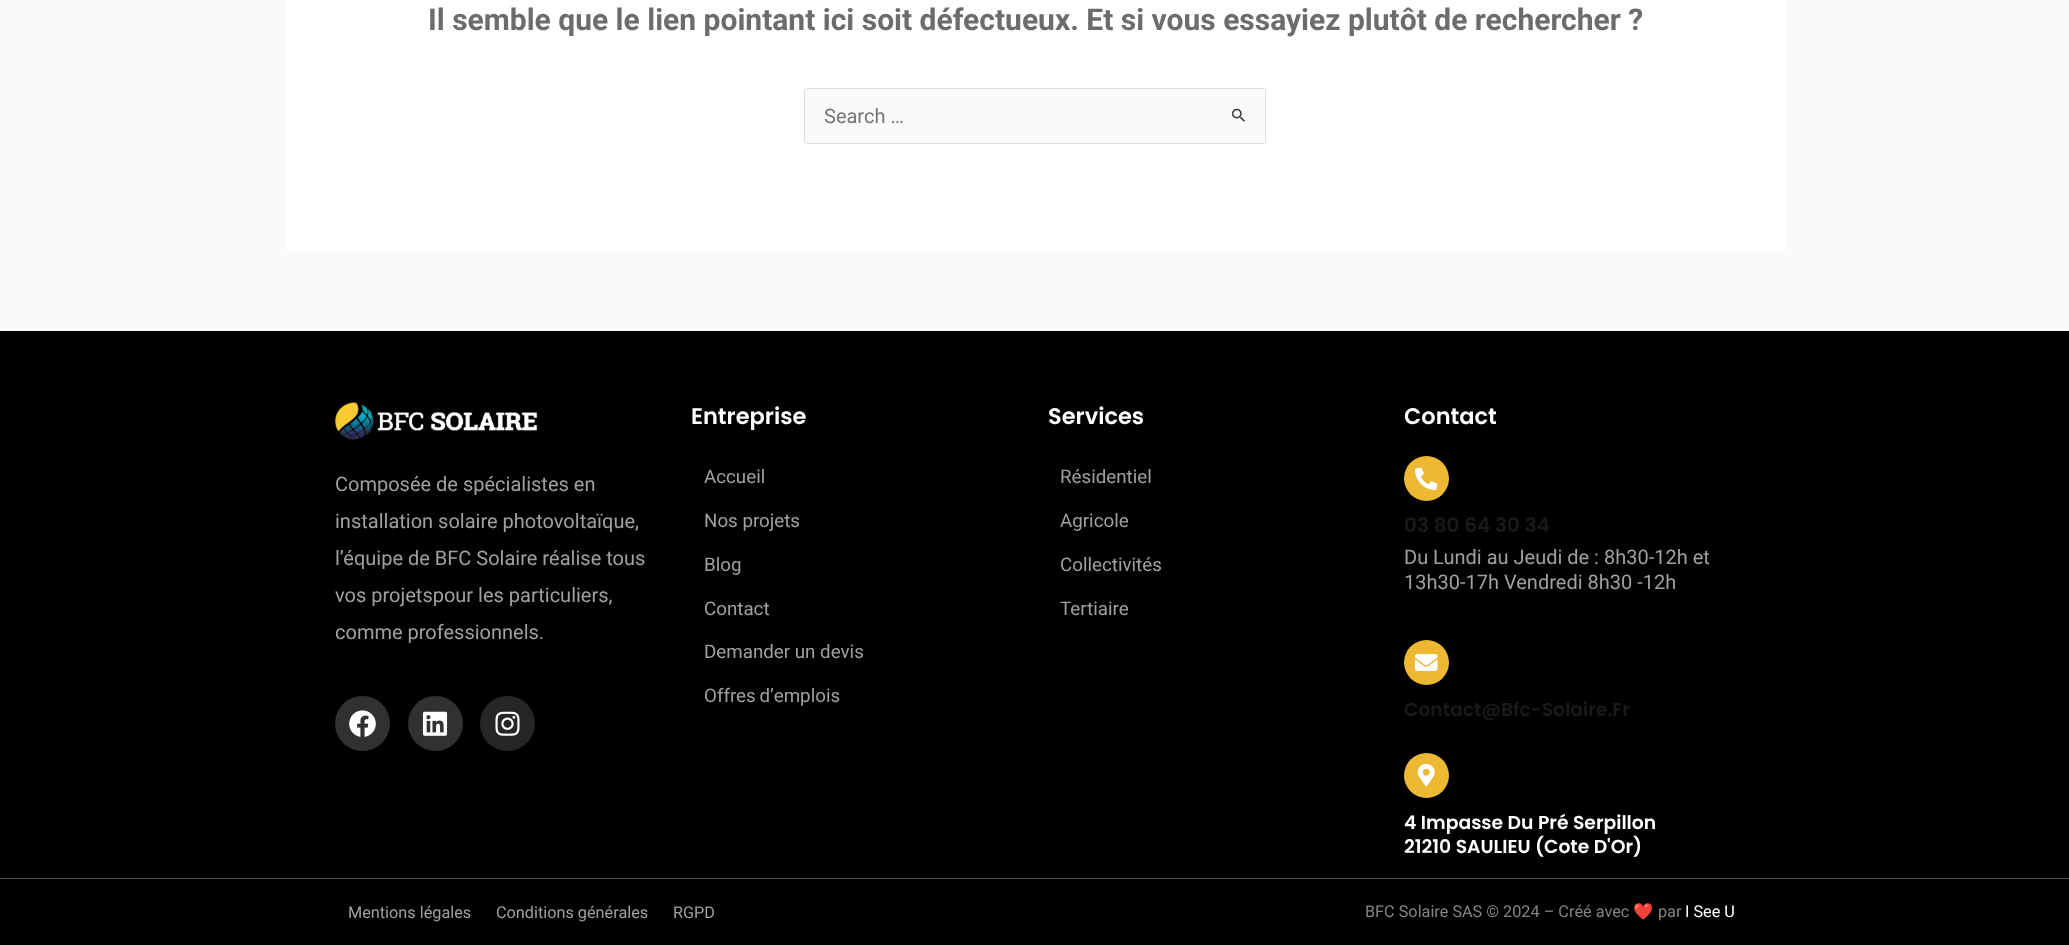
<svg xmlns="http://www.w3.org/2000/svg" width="2069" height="945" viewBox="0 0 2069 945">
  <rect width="100%" height="100%" fill="#fafafa"/>
  <rect x="285" y="0" width="1500" height="251" fill="#ffffff"/>
  <text x="428" y="30" font-family="Roboto" font-size="30" font-weight="bold" fill="#6c6c6c">Il semble que le lien pointant ici soit défectueux. Et si vous essayiez plutôt de rechercher ?</text>
  <rect x="804.5" y="88.5" width="461" height="55" rx="2" fill="#fafafa" stroke="#dddddd"/>
  <text x="824" y="123" font-family="Roboto" font-size="20" fill="#757575">Search …</text>
  <image x="1231" y="108" width="14" height="14" href="img1.png"/>
  <rect x="0" y="331" width="2069" height="547" fill="#000000"/>
  <image x="335" y="402" width="203" height="38" href="img2.png"/>
  <text x="335" y="491" font-family="Roboto" font-size="20" fill="#a0a0a0">Composée de spécialistes en</text>
  <text x="335" y="528" font-family="Roboto" font-size="20" fill="#a0a0a0">installation solaire photovoltaïque,</text>
  <text x="335" y="565" font-family="Roboto" font-size="20" fill="#a0a0a0">l’équipe de BFC Solaire réalise tous</text>
  <text x="335" y="602" font-family="Roboto" font-size="20" fill="#a0a0a0">vos projetspour les particuliers,</text>
  <text x="335" y="639" font-family="Roboto" font-size="20" fill="#a0a0a0">comme professionnels.</text>
  <circle cx="362.5" cy="723.5" r="27.5" fill="#323131"/>
  <image x="349" y="710" width="27" height="27" href="img3.png"/>
  <circle cx="435.5" cy="723.5" r="27.5" fill="#323131"/>
  <image x="422" y="711" width="26" height="25" href="img4.png"/>
  <circle cx="507.5" cy="723.5" r="27.5" fill="#262626"/>
  <image x="495" y="711" width="25" height="25" href="img5.png"/>
  <text x="691" y="424" font-family="Poppins" font-size="22.5" font-weight="600" fill="#ffffff">Entreprise</text>
  <text x="704" y="483" font-family="Roboto" font-size="18.75" fill="#a0a0a0">Accueil</text>
  <text x="704" y="527" font-family="Roboto" font-size="18.75" fill="#a0a0a0">Nos projets</text>
  <text x="704" y="571" font-family="Roboto" font-size="18.75" fill="#a0a0a0">Blog</text>
  <text x="704" y="615" font-family="Roboto" font-size="18.75" fill="#a0a0a0">Contact</text>
  <text x="704" y="658" font-family="Roboto" font-size="18.75" fill="#a0a0a0">Demander un devis</text>
  <text x="704" y="702" word-spacing="-1" font-family="Roboto" font-size="18.75" fill="#a0a0a0">Offres d’emplois</text>
  <text x="1048" y="424" font-family="Poppins" font-size="22.5" font-weight="600" fill="#ffffff">Services</text>
  <text x="1060" y="483" font-family="Roboto" font-size="18.75" fill="#a0a0a0">Résidentiel</text>
  <text x="1060" y="527" font-family="Roboto" font-size="18.75" fill="#a0a0a0">Agricole</text>
  <text x="1060" y="571" font-family="Roboto" font-size="18.75" fill="#a0a0a0">Collectivités</text>
  <text x="1060" y="615" font-family="Roboto" font-size="18.75" fill="#a0a0a0">Tertiaire</text>
  <text x="1404" y="424" font-family="Poppins" font-size="22.5" font-weight="600" fill="#ffffff">Contact</text>
  <circle cx="1426.5" cy="478.5" r="22.5" fill="#edb932"/>
  <image x="1415" y="468" width="23" height="22" href="img6.png"/>
  <text x="1404" y="532" font-family="Poppins" font-size="20" font-weight="600" fill="#1a1a1a">03 80 64 30 34</text>
  <text x="1404" y="564" font-family="Roboto" font-size="20" fill="#a0a0a0">Du Lundi au Jeudi de : 8h30-12h et</text>
  <text x="1404" y="589" font-family="Roboto" font-size="20" fill="#a0a0a0">13h30-17h Vendredi 8h30 -12h</text>
  <circle cx="1426.5" cy="662.5" r="22.5" fill="#edb932"/>
  <image x="1415" y="654" width="23" height="17" href="img7.png"/>
  <text x="1404" y="716" font-family="Poppins" font-size="18.75" font-weight="600" fill="#1a1a1a">Contact@Bfc-Solaire.Fr</text>
  <circle cx="1426.5" cy="775.5" r="22.5" fill="#edb932"/>
  <image x="1417" y="764" width="18" height="22" href="img8.png"/>
  <text x="1404" y="829" font-family="Poppins" font-size="18.75" font-weight="600" fill="#ffffff">4 Impasse Du Pré Serpillon</text>
  <text x="1404" y="853" font-family="Poppins" font-size="18.75" font-weight="600" fill="#ffffff">21210 SAULIEU (Cote D'Or)</text>
  <rect x="0" y="879" width="2069" height="66" fill="#000000"/>
  <rect x="0" y="878" width="2069" height="1" fill="#4d4d4d"/>
  <text x="348" y="918" font-family="Roboto" font-size="16.25" fill="#a0a0a0">Mentions légales</text>
  <text x="496" y="918" font-family="Roboto" font-size="16.25" fill="#a0a0a0">Conditions générales</text>
  <text x="673" y="918" font-family="Roboto" font-size="16.25" fill="#a0a0a0">RGPD</text>
  <text x="1365" y="917" font-family="Roboto" font-size="16.25" fill="#858585">BFC Solaire SAS © 2024 – Créé avec</text>
  <text x="1633" y="917" font-family="Noto Color Emoji" font-size="16.25" fill="#858585">❤️</text>
  <text x="1658" y="917" font-family="Roboto" font-size="16.25" fill="#858585">par</text>
  <text x="1685" y="917" font-family="Roboto" font-size="16.25" fill="#ffffff">I See U</text>
</svg>
